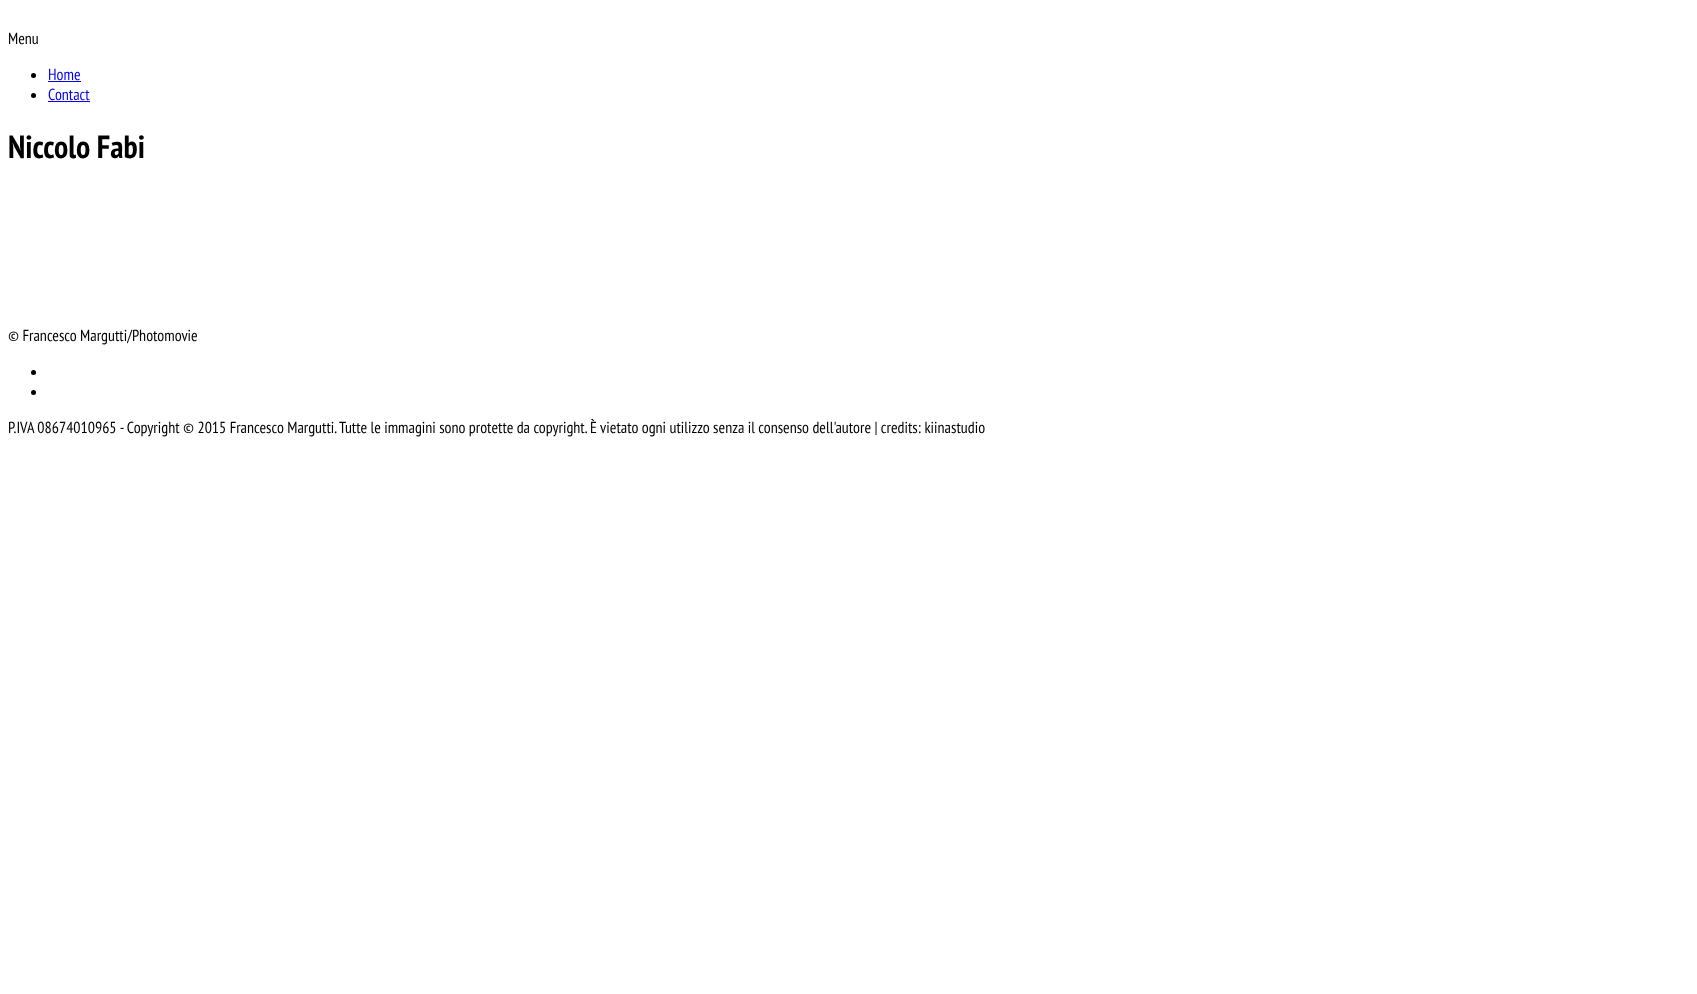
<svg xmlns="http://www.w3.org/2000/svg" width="1697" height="994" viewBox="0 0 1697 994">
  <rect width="100%" height="100%" fill="#ffffff"/>
  <text x="8" y="44" font-family="PT Sans Narrow" font-size="16" fill="#000000">Menu</text>
  <circle cx="33.5" cy="75.5" r="2.5" fill="#000000"/>
  <text x="48" y="80" font-family="PT Sans Narrow" font-size="16" fill="#0000ee">Home</text>
  <rect x="48" y="81" width="33" height="1" fill="#0000ee"/>
  <circle cx="33.5" cy="95.5" r="2.5" fill="#000000"/>
  <text x="48" y="100" font-family="PT Sans Narrow" font-size="16" fill="#0000ee">Contact</text>
  <rect x="48" y="101" width="42" height="1" fill="#0000ee"/>
  <text x="8" y="158" font-family="PT Sans Narrow" font-size="32" font-weight="bold" fill="#000000">Niccolo Fabi</text>
  <text x="8" y="341" font-family="PT Sans Narrow" font-size="16" fill="#000000">© Francesco Margutti/Photomovie</text>
  <circle cx="33.5" cy="372.5" r="2.5" fill="#000000"/>
  <circle cx="33.5" cy="392.5" r="2.5" fill="#000000"/>
  <text x="8" y="433" font-family="PT Sans Narrow" font-size="16" fill="#000000">P.IVA 08674010965 - Copyright © 2015 Francesco Margutti. Tutte le immagini sono protette da copyright. È vietato ogni utilizzo senza il consenso dell'autore | credits: kiinastudio</text>
</svg>
